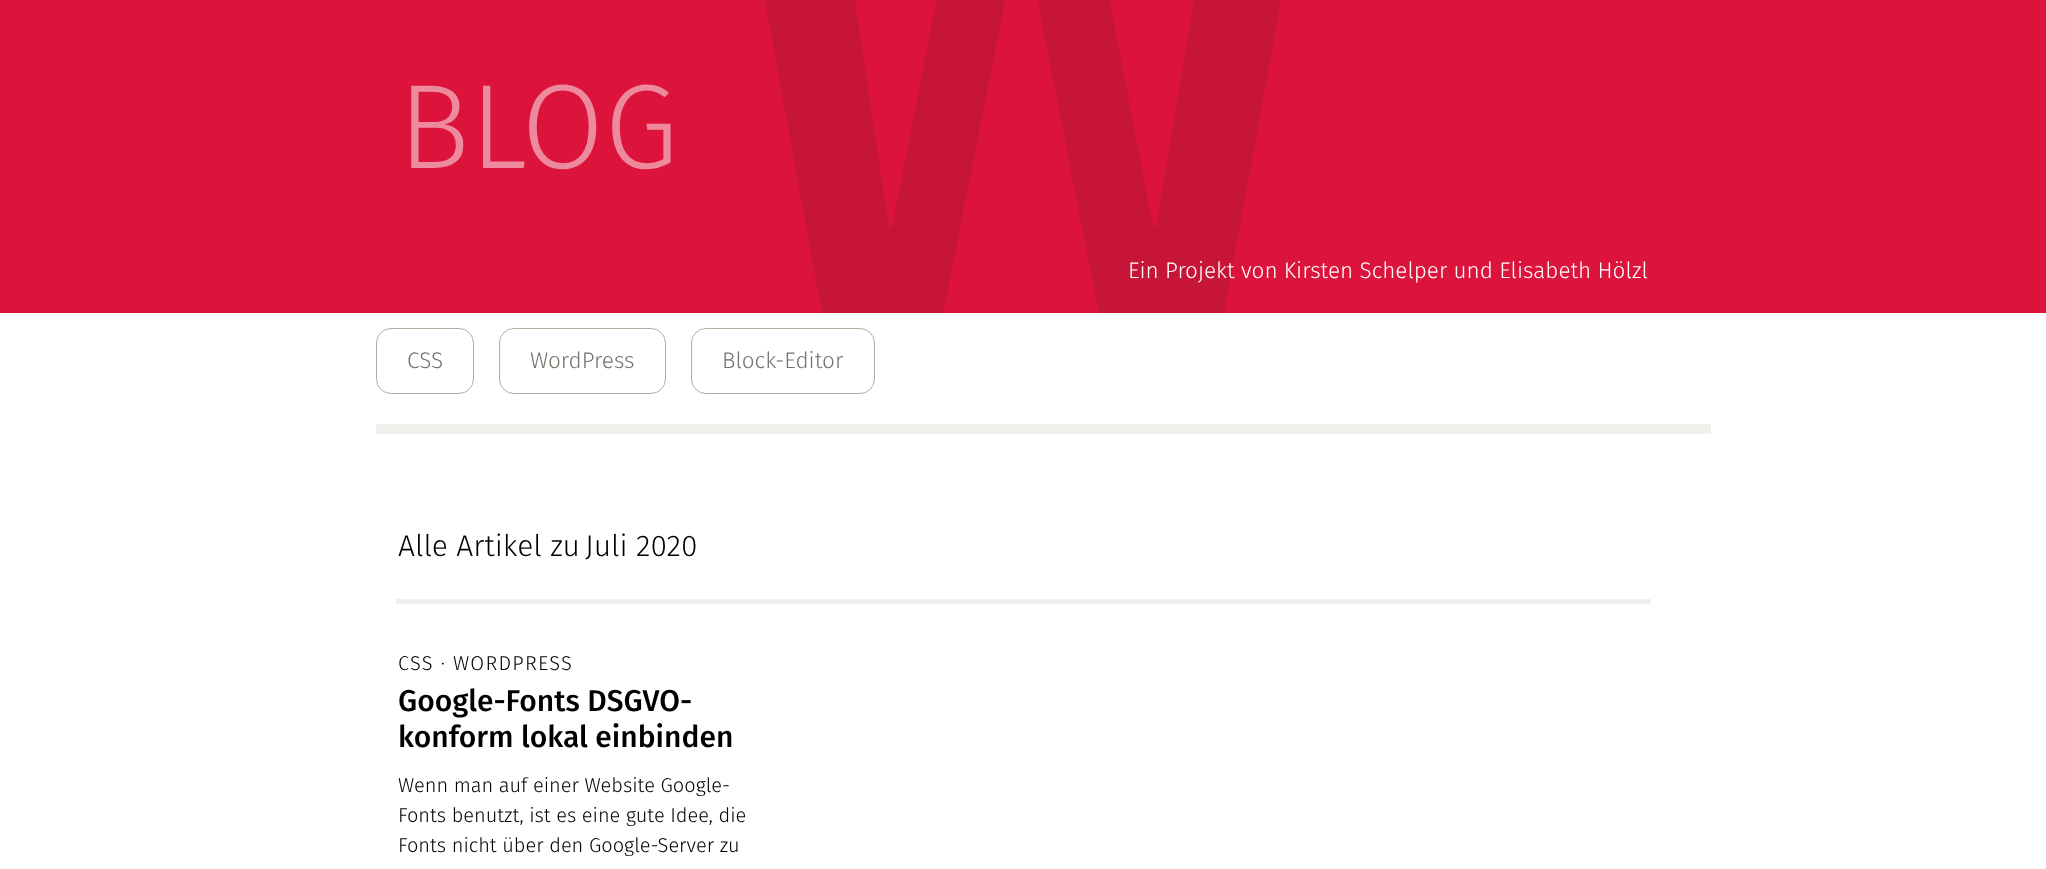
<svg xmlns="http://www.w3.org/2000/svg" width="2046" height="869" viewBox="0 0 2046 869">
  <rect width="100%" height="100%" fill="#ffffff"/>
  <rect x="0" y="0" width="2046" height="313" fill="#dc143c"/>
  <path d="M1315-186L1224 313H1099L1023-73H1020L943 313H822L731-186H827L889 228H892L973-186H1074L1153 227H1156L1225-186Z" fill="#c71538"/>
  <text x="398" y="168" font-family="Fira Sans" font-size="120" font-weight="300" fill="#ee8a9e">BLOG</text>
  <text x="1128" y="278" font-family="Fira Sans" font-size="22.5" font-weight="300" fill="#ffffff">Ein Projekt von Kirsten Schelper und Elisabeth Hölzl</text>
  <rect x="376.5" y="328.5" width="97" height="65" rx="14.5" fill="none" stroke="#b7ada0"/>
  <text x="407" y="368" font-family="Fira Sans" font-size="22.5" font-weight="300" fill="#77716b">CSS</text>
  <rect x="499.5" y="328.5" width="166" height="65" rx="14.5" fill="none" stroke="#b7ada0"/>
  <text x="530" y="368" font-family="Fira Sans" font-size="22.5" font-weight="300" fill="#77716b">WordPress</text>
  <rect x="691.5" y="328.5" width="183" height="65" rx="14.5" fill="none" stroke="#b7ada0"/>
  <text x="722" y="368" font-family="Fira Sans" font-size="22.5" font-weight="300" fill="#77716b">Block-Editor</text>
  <rect x="376" y="424" width="1335" height="10" fill="#f2f0ed"/>
  <text x="398" y="556" font-family="Fira Sans" font-size="30" font-weight="300" fill="#000000">Alle Artikel zu</text>
  <text x="585" y="556" font-family="Fira Sans" font-size="30" font-weight="300" fill="#000000">Juli 2020</text>
  <rect x="396" y="599" width="1255" height="5" fill="#f2f0ed"/>
  <text x="398" y="670" font-family="Fira Sans" font-size="20" font-weight="300" letter-spacing="1.25" fill="#000000">CSS · WORDPRESS</text>
  <text x="398" y="711" font-family="Fira Sans" font-size="30" font-weight="500" fill="#000000">Google-Fonts DSGVO-</text>
  <text x="398" y="747" font-family="Fira Sans" font-size="30" font-weight="500" fill="#000000">konform lokal einbinden</text>
  <text x="398" y="792" font-family="Fira Sans" font-size="20" font-weight="300" fill="#000000">Wenn man auf einer Website Google-</text>
  <text x="398" y="822" font-family="Fira Sans" font-size="20" font-weight="300" fill="#000000">Fonts benutzt, ist es eine gute Idee, die</text>
  <text x="398" y="852" font-family="Fira Sans" font-size="20" font-weight="300" fill="#000000">Fonts nicht über den Google-Server zu</text>
</svg>
